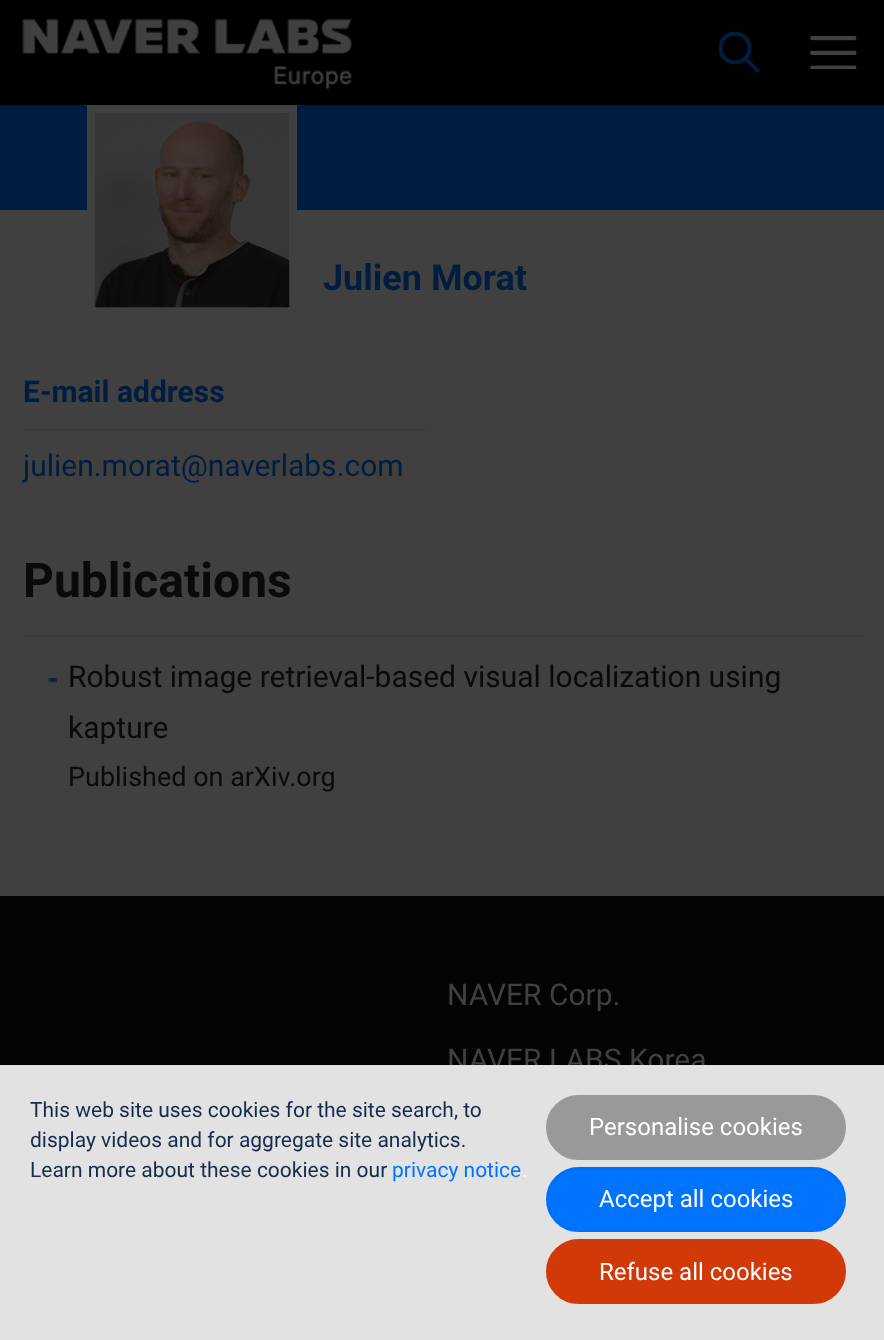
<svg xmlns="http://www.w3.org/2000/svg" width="884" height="1340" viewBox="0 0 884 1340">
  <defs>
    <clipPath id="clip1"><rect x="719" y="12" width="42" height="81"/></clipPath>
  </defs>
  <rect width="100%" height="100%" fill="#404040"/>
  <rect x="0" y="0" width="884" height="105" fill="#000000"/>
  <image x="22" y="18" width="330" height="72" href="img1.png"/>
  <g clip-path="url(#clip1)">
    <path d="M745 58L757.5 70.5M749.5 48C749.5 67 720.5 67 720.5 48C720.5 29 749.5 29 749.5 48Z" fill="none" stroke="#001d40" stroke-width="4.1" stroke-linecap="round" stroke-linejoin="round"/>
  </g>
  <image x="810" y="36" width="47" height="33" href="img2.png"/>
  <rect x="0" y="105" width="884" height="105" fill="#001c40"/>
  <rect x="91" y="109" width="202" height="202" fill="none" stroke="#404040" stroke-width="8"/>
  <image x="94" y="112" width="196" height="196" href="img3.png"/>
  <text x="323" y="290" font-family="Roboto" font-size="36" font-weight="bold" fill="#001d40">Julien Morat</text>
  <rect x="23" y="429" width="403" height="2" fill="#3b3b3b"/>
  <text x="23" y="402" font-family="Roboto" font-size="30" font-weight="bold" fill="#001d40">E-mail address</text>
  <text x="23" y="476" font-family="Roboto" font-size="30" fill="#001d40">julien.morat@naverlabs.com</text>
  <rect x="23" y="635" width="840" height="2" fill="#3b3b3b"/>
  <text x="23" y="597" font-family="Roboto" font-size="48" font-weight="bold" fill="#0a0a0a">Publications</text>
  <image x="48" y="678" width="9" height="5" href="img4.png"/>
  <text x="68" y="687" font-family="Roboto" font-size="30" fill="#0a0a0a">Robust image retrieval-based visual localization using</text>
  <text x="68" y="738" font-family="Roboto" font-size="30" fill="#0a0a0a">kapture</text>
  <text x="68" y="786" font-family="Roboto" font-size="27" fill="#0a0a0a">Published on arXiv.org</text>
  <rect x="0" y="896" width="884" height="169" fill="#040404"/>
  <text x="447" y="1005" font-family="Roboto" font-size="30" fill="#404040">NAVER Corp.</text>
  <text x="447" y="1070" font-family="Roboto" font-size="30" fill="#404040">NAVER LABS Korea</text>
  <rect x="0" y="1065" width="884" height="275" fill="#e2e2e2"/>
  <text x="30" y="1117" font-family="Roboto" font-size="21" fill="#172b4d">This web site uses cookies for the site search, to</text>
  <text x="30" y="1147" font-family="Roboto" font-size="21" fill="#172b4d">display videos and for aggregate site analytics.</text>
  <text x="30" y="1177" font-family="Roboto" font-size="21" fill="#172b4d">Learn more about these cookies in our</text>
  <text x="392" y="1177" font-family="Roboto" font-size="21" fill="#0074ff">privacy notice</text>
  <text x="522" y="1177" font-family="Roboto" font-size="21" fill="#ffffff">.</text>
  <rect x="547.5" y="1096.5" width="297" height="62" rx="31" fill="#999999" stroke="#999999" stroke-width="3"/>
  <text x="589" y="1135" font-family="Roboto" font-size="24" fill="#ffffff">Personalise cookies</text>
  <rect x="547.5" y="1168.5" width="297" height="62" rx="31" fill="#0074ff" stroke="#006eff" stroke-width="3"/>
  <text x="599" y="1207" font-family="Roboto" font-size="24" fill="#ffffff">Accept all cookies</text>
  <rect x="547.5" y="1240.5" width="297" height="62" rx="31" fill="#d13a08" stroke="#d13a08" stroke-width="3"/>
  <text x="599" y="1280" font-family="Roboto" font-size="24" fill="#ffffff">Refuse all cookies</text>
</svg>
